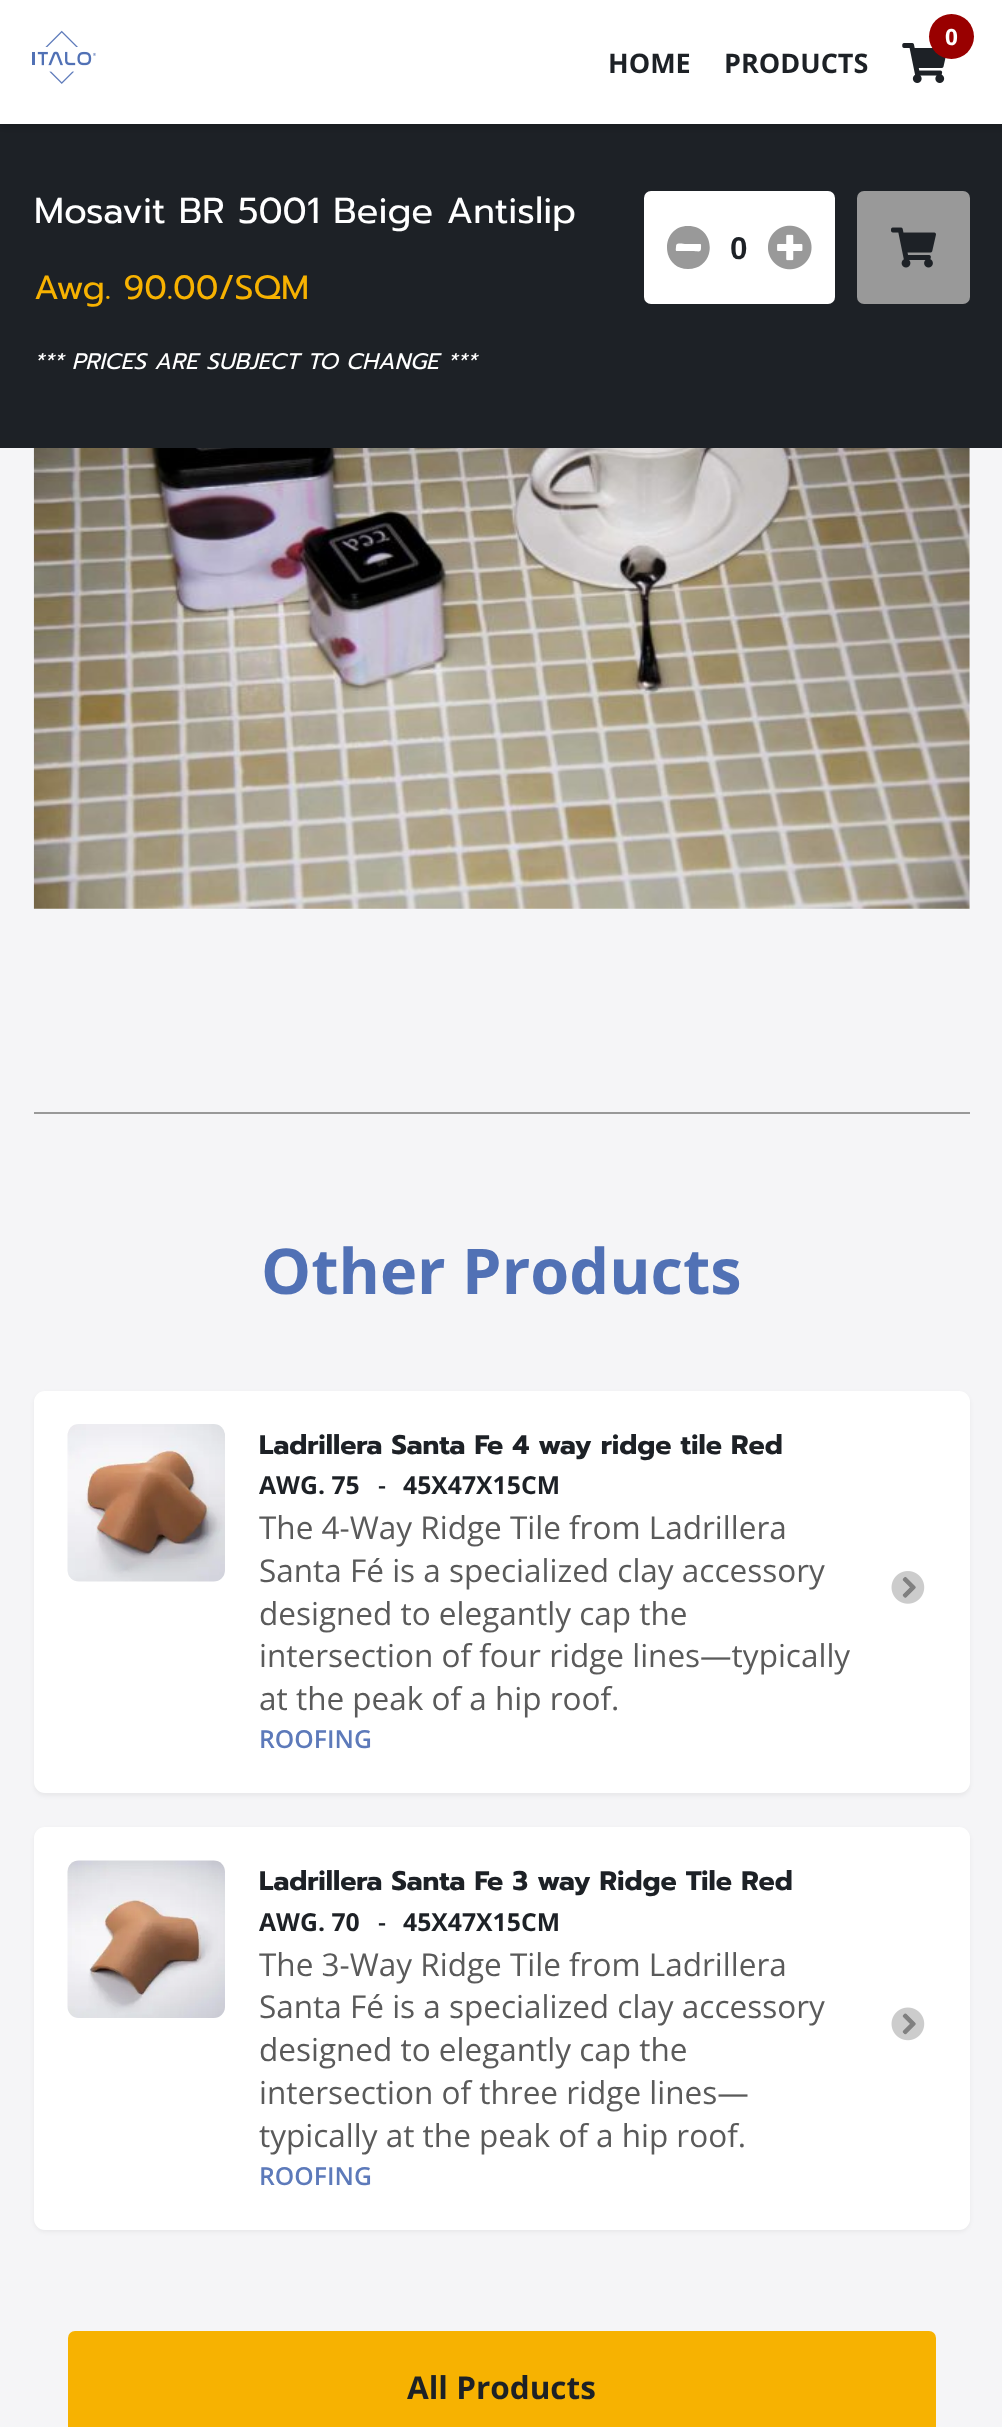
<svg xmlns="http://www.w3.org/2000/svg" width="1002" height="2427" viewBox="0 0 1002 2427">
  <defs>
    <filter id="blur1" x="-50%" y="-200%" width="200%" height="500%"><feGaussianBlur stdDeviation="3.5"/></filter>
    <filter id="blur2" x="-50%" y="-200%" width="200%" height="500%"><feGaussianBlur stdDeviation="2"/></filter>
  </defs>
  <rect width="100%" height="100%" fill="#f5f5f7"/>
  <rect x="0" y="124" width="1002" height="324" fill="#1d2126"/>
  <rect x="0" y="5" width="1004" height="123" fill="#000000" fill-opacity="0.16" filter="url(#blur1)"/>
  <rect x="0" y="0" width="1002" height="124" fill="#ffffff"/>
  <image x="32" y="30" width="64" height="54" href="img1.png"/>
  <image x="902" y="43" width="44" height="40" href="img2.png"/>
  <circle cx="951.5" cy="36.5" r="22.5" fill="#990000"/>
  <text x="945" y="45" font-family="Open Sans" font-size="22.5" font-weight="bold" fill="#ffffff">0</text>
  <text x="608" y="73" font-family="Open Sans" font-size="27" font-weight="bold" fill="#1d2126">HOME</text>
  <text x="724" y="73" font-family="Open Sans" font-size="27" font-weight="bold" fill="#1d2126">PRODUCTS</text>
  <text x="34" y="223" font-family="Prompt" font-size="36" fill="#ffffff">Mosavit BR 5001 Beige Antislip</text>
  <text x="34" y="299" font-family="Prompt" font-size="33.75" fill="#f7b201">Awg. 90.00/SQM</text>
  <text x="34" y="369" font-family="Prompt" font-size="22.5" font-style="italic" fill="#ffffff">*** PRICES ARE SUBJECT TO CHANGE ***</text>
  <rect x="644" y="191" width="191" height="113" rx="7" fill="#ffffff"/>
  <path d="M688 226C660 226 660 269 688 269C717 269 717 226 688 226ZM677 251C675 251 676 248 676 247C676 242 679 244 685 244H696C702 244 701 243 701 248C701 253 698 251 692 251Z" fill="#999999"/>
  <text x="730" y="259" font-family="Liberation Sans" font-size="31.5" font-weight="bold" fill="#1d2126">0</text>
  <image x="768" y="225" width="44" height="45" href="img3.png"/>
  <rect x="857" y="191" width="113" height="113" rx="7" fill="#999999"/>
  <image x="891" y="227" width="45" height="41" href="img4.png"/>
  <image x="33" y="448" width="937" height="461" href="img5.png"/>
  <rect x="34" y="1112" width="936" height="2" fill="#999999"/>
  <text x="261" y="1294" font-family="Open Sans" font-size="63" font-weight="bold" fill="#5171b5">Other Products</text>
  <rect x="34" y="1393" width="936" height="403" rx="11" fill="#000000" fill-opacity="0.05" filter="url(#blur2)"/>
  <rect x="34" y="1391" width="936" height="402" rx="11" fill="#ffffff"/>
  <image x="67" y="1424" width="158" height="158" href="img6.png"/>
  <text x="259" y="1454" font-family="Prompt" font-size="27" font-weight="bold" fill="#1d2126">Ladrillera Santa Fe 4 way ridge tile Red</text>
  <text x="259" y="1494" font-family="Open Sans" font-size="24.75" font-weight="bold" fill="#1d2126">AWG. 75</text>
  <text x="378" y="1494" font-family="Open Sans" font-size="24.75" font-weight="600" fill="#1d2126">-</text>
  <text x="403" y="1494" font-family="Open Sans" font-size="24.75" font-weight="bold" fill="#1d2126">45X47X15CM</text>
  <text x="259" y="1539" font-family="Open Sans" font-size="31.5" fill="#5a5a5a">The 4-Way Ridge Tile from Ladrillera</text>
  <text x="259" y="1582" font-family="Open Sans" font-size="31.5" fill="#5a5a5a">Santa Fé is a specialized clay accessory</text>
  <text x="259" y="1625" font-family="Open Sans" font-size="31.5" fill="#5a5a5a">designed to elegantly cap the</text>
  <text x="259" y="1667" font-family="Open Sans" font-size="31.5" fill="#5a5a5a">intersection of four ridge lines—typically</text>
  <text x="259" y="1710" font-family="Open Sans" font-size="31.5" fill="#5a5a5a">at the peak of a hip roof.</text>
  <text x="259" y="1748" font-family="Open Sans" font-size="24.75" font-weight="600" fill="#5d7aba">ROOFING</text>
  <image x="891" y="1571" width="34" height="33" href="img7.png"/>
  <rect x="34" y="1829" width="936" height="403" rx="11" fill="#000000" fill-opacity="0.05" filter="url(#blur2)"/>
  <rect x="34" y="1827" width="936" height="403" rx="11" fill="#ffffff"/>
  <image x="67" y="1860" width="158" height="158" href="img8.png"/>
  <text x="259" y="1890" font-family="Prompt" font-size="27" font-weight="bold" fill="#1d2126">Ladrillera Santa Fe 3 way Ridge Tile Red</text>
  <text x="259" y="1931" font-family="Open Sans" font-size="24.75" font-weight="bold" fill="#1d2126">AWG. 70</text>
  <text x="378" y="1931" font-family="Open Sans" font-size="24.75" font-weight="600" fill="#1d2126">-</text>
  <text x="403" y="1931" font-family="Open Sans" font-size="24.75" font-weight="bold" fill="#1d2126">45X47X15CM</text>
  <text x="259" y="1976" font-family="Open Sans" font-size="31.5" fill="#5a5a5a">The 3-Way Ridge Tile from Ladrillera</text>
  <text x="259" y="2018" font-family="Open Sans" font-size="31.5" fill="#5a5a5a">Santa Fé is a specialized clay accessory</text>
  <text x="259" y="2061" font-family="Open Sans" font-size="31.5" fill="#5a5a5a">designed to elegantly cap the</text>
  <text x="259" y="2104" font-family="Open Sans" font-size="31.5" fill="#5a5a5a">intersection of three ridge lines—</text>
  <text x="259" y="2147" font-family="Open Sans" font-size="31.5" fill="#5a5a5a">typically at the peak of a hip roof.</text>
  <text x="259" y="2185" font-family="Open Sans" font-size="24.75" font-weight="600" fill="#5d7aba">ROOFING</text>
  <image x="891" y="2007" width="34" height="34" href="img9.png"/>
  <rect x="68" y="2331" width="868" height="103" rx="7" fill="#f7b201"/>
  <text x="407" y="2399" font-family="Open Sans" font-size="31.5" font-weight="bold" fill="#1d2126">All Products</text>
</svg>
